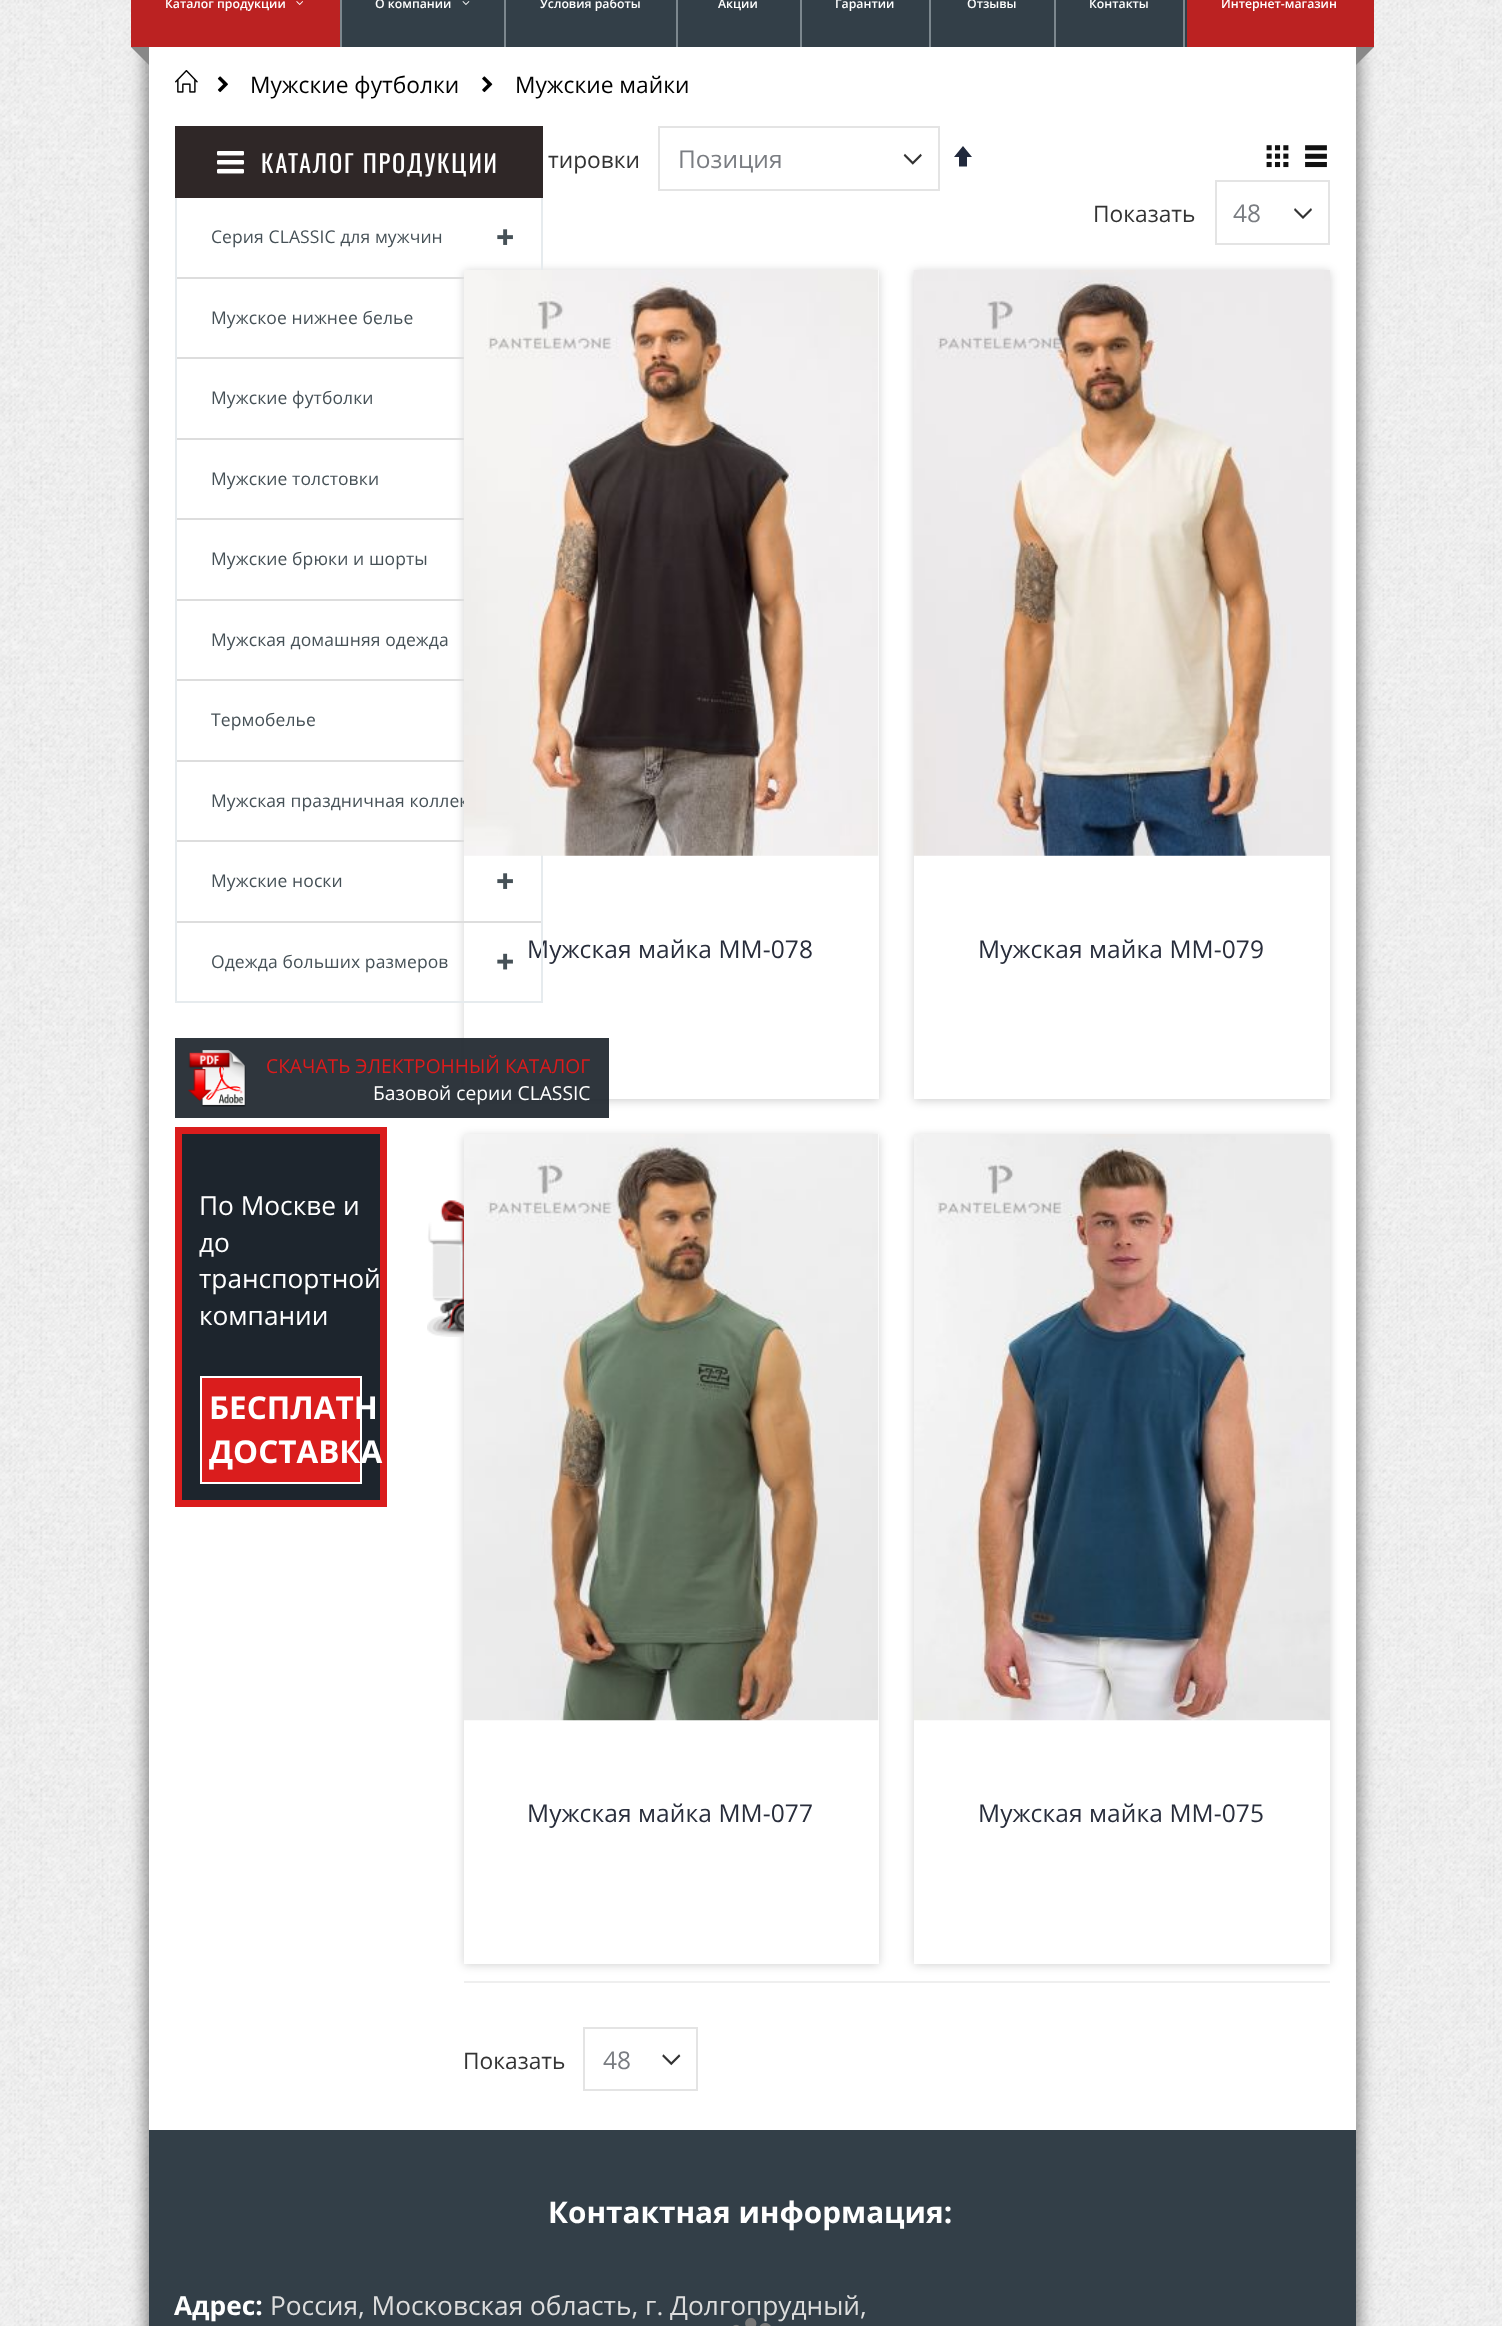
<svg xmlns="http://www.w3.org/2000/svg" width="1502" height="2326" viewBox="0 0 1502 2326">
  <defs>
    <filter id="blur1" x="-50%" y="-200%" width="200%" height="500%"><feGaussianBlur stdDeviation="9"/></filter>
    <filter id="blur2" x="-50%" y="-200%" width="200%" height="500%"><feGaussianBlur stdDeviation="5"/></filter>
    <clipPath id="clip1"><path d="M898 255H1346V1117H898ZM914 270H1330V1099H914Z" clip-rule="evenodd"/></clipPath>
  </defs>
  <rect width="100%" height="100%" fill="#ffffff"/>
  <image x="0" y="0" width="1502" height="2326" href="img1.png"/>
  <rect x="147" y="46" width="1211" height="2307" fill="#000000" fill-opacity="0.5" filter="url(#blur1)"/>
  <rect x="149" y="47" width="1207" height="2083" fill="#ffffff"/>
  <rect x="342" y="0" width="845" height="47" fill="#333f48"/>
  <rect x="131" y="0" width="209" height="47" fill="#bb2222"/>
  <rect x="340" y="0" width="2" height="47" fill="#7c878e"/>
  <text x="165" y="8" font-family="Open Sans" font-size="12.25" font-weight="600" fill="#ffffff">Каталог продукции</text>
  <image x="296" y="1" width="7" height="4" href="img2.png"/>
  <rect x="504" y="0" width="2" height="47" fill="#7c878e"/>
  <text x="375" y="8" font-family="Open Sans" font-size="12.25" font-weight="600" fill="#ffffff">О компании</text>
  <image x="462" y="1" width="8" height="4" href="img3.png"/>
  <rect x="676" y="0" width="2" height="47" fill="#7c878e"/>
  <text x="540" y="8" font-family="Open Sans" font-size="12.25" font-weight="600" fill="#ffffff">Условия работы</text>
  <rect x="800" y="0" width="2" height="47" fill="#7c878e"/>
  <text x="718" y="8" font-family="Open Sans" font-size="12.25" font-weight="600" fill="#ffffff">Акции</text>
  <rect x="929" y="0" width="2" height="47" fill="#7c878e"/>
  <text x="835" y="8" font-family="Open Sans" font-size="12.25" font-weight="600" fill="#ffffff">Гарантии</text>
  <rect x="1054" y="0" width="2" height="47" fill="#7c878e"/>
  <text x="967" y="8" font-family="Open Sans" font-size="12.25" font-weight="600" fill="#ffffff">Отзывы</text>
  <rect x="1183" y="0" width="2" height="47" fill="#7c878e"/>
  <text x="1089" y="8" font-family="Open Sans" font-size="12.25" font-weight="600" fill="#ffffff">Контакты</text>
  <rect x="1187" y="0" width="187" height="47" fill="#bb2222"/>
  <text x="1221" y="8" font-family="Open Sans" font-size="12.25" font-weight="600" fill="#ffffff">Интернет-магазин</text>
  <path d="M149 47V65L131 47Z" fill="#888888"/>
  <path d="M1356 65V47H1374Z" fill="#888888"/>
  <image x="175" y="70" width="23" height="23" href="img4.png"/>
  <image x="217" y="76" width="11" height="17" href="img5.png"/>
  <text x="250" y="93" font-family="Open Sans" font-size="22.75" fill="#000000">Мужские футболки</text>
  <image x="482" y="76" width="11" height="17" href="img6.png"/>
  <text x="515" y="93" font-family="Open Sans" font-size="22.75" fill="#000000">Мужские майки</text>
  <rect x="175" y="126" width="368" height="72" fill="#2f2727"/>
  <image x="217" y="151" width="27" height="23" href="img7.png"/>
  <text x="261" y="173" font-family="Oswald" font-size="24.5" letter-spacing="1.8" fill="#ffffff">КАТАЛОГ ПРОДУКЦИИ</text>
  <rect x="464" y="271" width="415" height="830" fill="#000000" fill-opacity="0.18" filter="url(#blur2)"/>
  <rect x="464" y="270" width="415" height="829" fill="#ffffff"/>
  <text x="527" y="958" font-family="Open Sans" font-size="24.5" letter-spacing="0.1" fill="#282d3b">Мужская майка MM-078</text>
  <rect x="541" y="198" width="2" height="805" fill="#e6ebee"/>
  <rect x="175" y="1001" width="368" height="2" fill="#e6ebee"/>
  <rect x="175" y="198" width="2" height="805" fill="#e6ebee"/>
  <rect x="177" y="277" width="287" height="2" fill="#dddddd"/>
  <text x="211" y="243" font-family="Open Sans" font-size="17.5" letter-spacing="0.1" fill="#465157">Серия CLASSIC для мужчин</text>
  <image x="497" y="229" width="16" height="16" href="img8.png"/>
  <rect x="177" y="357" width="287" height="2" fill="#dddddd"/>
  <text x="211" y="324" font-family="Open Sans" font-size="17.5" letter-spacing="0.1" fill="#465157">Мужское нижнее белье</text>
  <rect x="177" y="438" width="287" height="2" fill="#dddddd"/>
  <text x="211" y="404" font-family="Open Sans" font-size="17.5" letter-spacing="0.1" fill="#465157">Мужские футболки</text>
  <rect x="177" y="518" width="287" height="2" fill="#dddddd"/>
  <text x="211" y="485" font-family="Open Sans" font-size="17.5" letter-spacing="0.1" fill="#465157">Мужские толстовки</text>
  <rect x="177" y="599" width="287" height="2" fill="#dddddd"/>
  <text x="211" y="565" font-family="Open Sans" font-size="17.5" letter-spacing="0.1" fill="#465157">Мужские брюки и шорты</text>
  <rect x="177" y="679" width="287" height="2" fill="#dddddd"/>
  <text x="211" y="646" font-family="Open Sans" font-size="17.5" letter-spacing="0.1" fill="#465157">Мужская домашняя одежда</text>
  <rect x="177" y="760" width="287" height="2" fill="#dddddd"/>
  <text x="211" y="726" font-family="Open Sans" font-size="17.5" letter-spacing="0.1" fill="#465157">Термобелье</text>
  <rect x="177" y="840" width="287" height="2" fill="#dddddd"/>
  <text x="211" y="807" font-family="Open Sans" font-size="17.5" letter-spacing="0.1" fill="#465157">Мужская праздничная коллек</text>
  <rect x="177" y="921" width="364" height="2" fill="#dddddd"/>
  <text x="211" y="887" font-family="Open Sans" font-size="17.5" letter-spacing="0.1" fill="#465157">Мужские носки</text>
  <image x="497" y="873" width="16" height="16" href="img8.png"/>
  <text x="211" y="968" font-family="Open Sans" font-size="17.5" letter-spacing="0.1" fill="#465157">Одежда больших размеров</text>
  <image x="497" y="953" width="16" height="17" href="img9.png"/>
  <rect x="175" y="1038" width="434" height="80" fill="#1d252d" fill-opacity="0.92"/>
  <image x="188" y="1050" width="58" height="57" href="img10.png"/>
  <text x="266" y="1073" font-family="Open Sans" font-size="19.25" fill="#dc1b1c">СКАЧАТЬ ЭЛЕКТРОННЫЙ КАТАЛОГ</text>
  <text x="373" y="1100" font-family="Open Sans" font-size="19.25" fill="#ffffff">Базовой серии CLASSIC</text>
  <rect x="178.5" y="1130.5" width="205" height="373" fill="#1d252d" stroke="#da1d1d" stroke-width="7"/>
  <text x="199" y="1215" font-family="Open Sans" font-size="26.25" fill="#ffffff">По Москве и</text>
  <text x="199" y="1252" font-family="Open Sans" font-size="26.25" fill="#ffffff">до</text>
  <text x="199" y="1288" font-family="Open Sans" font-size="26.25" fill="#ffffff">транспортной</text>
  <text x="199" y="1325" font-family="Open Sans" font-size="26.25" fill="#ffffff">компании</text>
  <rect x="464" y="1136" width="415" height="829" fill="#000000" fill-opacity="0.18" filter="url(#blur2)"/>
  <image x="427" y="1200" width="37" height="137" href="img11.png"/>
  <rect x="201" y="1377" width="160" height="106" fill="#da1d1d" stroke="#ffffff" stroke-width="2"/>
  <text x="209" y="1419" font-family="Open Sans" font-size="31.5" font-weight="bold" fill="#ffffff">БЕСПЛАТН</text>
  <text x="209" y="1463" font-family="Open Sans" font-size="31.5" font-weight="bold" fill="#ffffff">ДОСТАВКА</text>
  <text x="548" y="168" font-family="Open Sans" font-size="22.75" fill="#333333">тировки</text>
  <image x="903" y="153" width="19" height="12" href="img12.png"/>
  <rect x="659" y="127" width="280" height="63" fill="none" stroke="#e4e4e4" stroke-width="2"/>
  <text x="678" y="168" font-family="Open Sans" font-size="24.5" fill="#7a7d82">Позиция</text>
  <path d="M972 157H967V166.5H959V157H954L963 146Z" fill="#21293c"/>
  <image x="1266" y="145" width="23" height="23" href="img13.png"/>
  <image x="1305" y="145" width="22" height="23" href="img14.png"/>
  <text x="1093" y="222" font-family="Open Sans" font-size="22.75" fill="#333333">Показать</text>
  <path d="M1303 219L1312 210L1311 208L1303 216L1295 208L1294 210Z" fill="#333333" fill-rule="evenodd"/>
  <rect x="1216" y="181" width="113" height="63" fill="none" stroke="#e4e4e4" stroke-width="2"/>
  <text x="1233" y="222" font-family="Open Sans" font-size="24.5" fill="#7a7d82">48</text>
  <image x="463" y="270" width="416" height="586" href="img15.png"/>
  <g clip-path="url(#clip1)">
    <rect x="914" y="271" width="416" height="830" fill="#000000" fill-opacity="0.18" filter="url(#blur2)"/>
  </g>
  <image x="913" y="270" width="417" height="586" href="img16.png"/>
  <text x="978" y="958" font-family="Open Sans" font-size="24.5" letter-spacing="0.1" fill="#282d3b">Мужская майка MM-079</text>
  <rect x="464" y="1134" width="415" height="830" fill="#ffffff"/>
  <image x="463" y="1134" width="416" height="587" href="img17.png"/>
  <text x="527" y="1822" font-family="Open Sans" font-size="24.5" letter-spacing="0.1" fill="#282d3b">Мужская майка MM-077</text>
  <rect x="914" y="1136" width="416" height="829" fill="#000000" fill-opacity="0.18" filter="url(#blur2)"/>
  <rect x="914" y="1720" width="416" height="244" fill="#ffffff"/>
  <image x="914" y="1134" width="416" height="587" href="img18.png"/>
  <text x="978" y="1822" font-family="Open Sans" font-size="24.5" letter-spacing="0.1" fill="#282d3b">Мужская майка MM-075</text>
  <rect x="464" y="1981" width="866" height="2" fill="#efefef"/>
  <text x="463" y="2069" font-family="Open Sans" font-size="22.75" fill="#333333">Показать</text>
  <image x="662" y="2054" width="19" height="12" href="img19.png"/>
  <rect x="584" y="2028" width="113" height="62" fill="none" stroke="#e4e4e4" stroke-width="2"/>
  <text x="603" y="2069" font-family="Open Sans" font-size="24.5" fill="#7a7d82">48</text>
  <rect x="149" y="2130" width="1207" height="196" fill="#333f48"/>
  <text x="548" y="2223" font-family="Open Sans" font-size="29.75" font-weight="bold" fill="#ffffff">Контактная информация:</text>
  <text x="174" y="2315" font-family="Open Sans" font-size="26.25" font-weight="bold" fill="#ffffff">Адрес:</text>
  <text x="270" y="2315" font-family="Open Sans" font-size="26.25" fill="#dddddd">Россия, Московская область, г. Долгопрудный,</text>
  <image x="733" y="2317" width="38" height="9" href="img20.png"/>
</svg>
